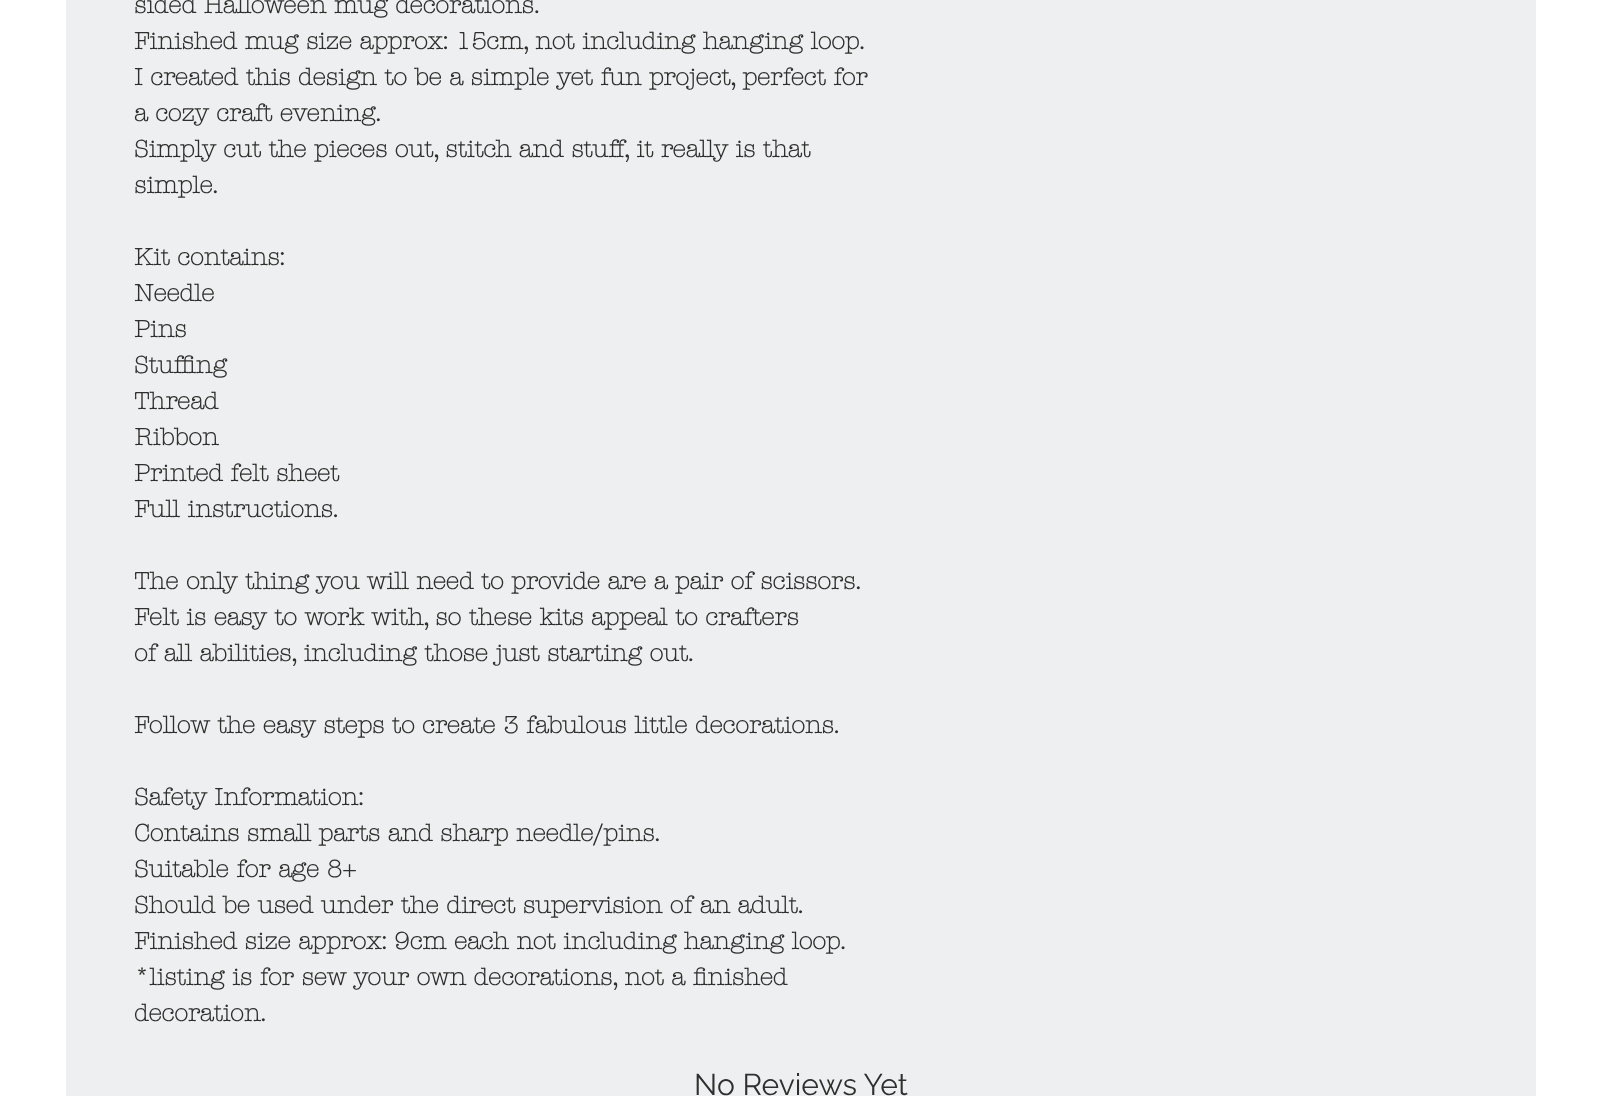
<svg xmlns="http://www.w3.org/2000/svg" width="1601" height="1096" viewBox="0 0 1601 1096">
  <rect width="100%" height="100%" fill="#ffffff"/>
  <rect x="66" y="0" width="1470" height="1096" fill="#edeff0"/>
  <text x="134" y="13" font-family="'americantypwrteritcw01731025'" font-size="24" font-weight="bold" fill="#2f2f2f">sided Halloween mug decorations.</text>
  <text x="134" y="49" font-family="'americantypwrteritcw01731025'" font-size="24" font-weight="bold" fill="#2f2f2f">Finished mug size approx: 15cm, not including hanging loop.</text>
  <text x="134" y="85" font-family="'americantypwrteritcw01731025'" font-size="24" font-weight="bold" fill="#2f2f2f">I created this design to be a simple yet fun project, perfect for</text>
  <text x="134" y="121" font-family="'americantypwrteritcw01731025'" font-size="24" font-weight="bold" fill="#2f2f2f">a cozy craft evening.</text>
  <text x="134" y="157" font-family="'americantypwrteritcw01731025'" font-size="24" font-weight="bold" fill="#2f2f2f">Simply cut the pieces out, stitch and stuff, it really is that</text>
  <text x="134" y="193" font-family="'americantypwrteritcw01731025'" font-size="24" font-weight="bold" fill="#2f2f2f">simple.</text>
  <text x="134" y="265" font-family="'americantypwrteritcw01731025'" font-size="24" font-weight="bold" fill="#2f2f2f">Kit contains:</text>
  <text x="134" y="301" font-family="'americantypwrteritcw01731025'" font-size="24" font-weight="bold" fill="#2f2f2f">Needle</text>
  <text x="134" y="337" font-family="'americantypwrteritcw01731025'" font-size="24" font-weight="bold" fill="#2f2f2f">Pins</text>
  <text x="134" y="373" font-family="'americantypwrteritcw01731025'" font-size="24" font-weight="bold" fill="#2f2f2f">Stuffing</text>
  <text x="134" y="409" font-family="'americantypwrteritcw01731025'" font-size="24" font-weight="bold" fill="#2f2f2f">Thread</text>
  <text x="134" y="445" font-family="'americantypwrteritcw01731025'" font-size="24" font-weight="bold" fill="#2f2f2f">Ribbon</text>
  <text x="134" y="481" font-family="'americantypwrteritcw01731025'" font-size="24" font-weight="bold" fill="#2f2f2f">Printed felt sheet</text>
  <text x="134" y="517" font-family="'americantypwrteritcw01731025'" font-size="24" font-weight="bold" fill="#2f2f2f">Full instructions.</text>
  <text x="134" y="589" font-family="'americantypwrteritcw01731025'" font-size="24" font-weight="bold" fill="#2f2f2f">The only thing you will need to provide are a pair of scissors.</text>
  <text x="134" y="625" font-family="'americantypwrteritcw01731025'" font-size="24" font-weight="bold" fill="#2f2f2f">Felt is easy to work with, so these kits appeal to crafters</text>
  <text x="134" y="661" font-family="'americantypwrteritcw01731025'" font-size="24" font-weight="bold" fill="#2f2f2f">of all abilities, including those just starting out.</text>
  <text x="134" y="733" font-family="'americantypwrteritcw01731025'" font-size="24" font-weight="bold" fill="#2f2f2f">Follow the easy steps to create 3 fabulous little decorations.</text>
  <text x="134" y="805" font-family="'americantypwrteritcw01731025'" font-size="24" font-weight="bold" fill="#2f2f2f">Safety Information:</text>
  <text x="134" y="841" font-family="'americantypwrteritcw01731025'" font-size="24" font-weight="bold" fill="#2f2f2f">Contains small parts and sharp needle/pins.</text>
  <text x="134" y="877" font-family="'americantypwrteritcw01731025'" font-size="24" font-weight="bold" fill="#2f2f2f">Suitable for age 8+</text>
  <text x="134" y="913" font-family="'americantypwrteritcw01731025'" font-size="24" font-weight="bold" fill="#2f2f2f">Should be used under the direct supervision of an adult.</text>
  <text x="134" y="949" font-family="'americantypwrteritcw01731025'" font-size="24" font-weight="bold" fill="#2f2f2f">Finished size approx: 9cm each not including hanging loop.</text>
  <text x="134" y="985" font-family="'americantypwrteritcw01731025'" font-size="24" font-weight="bold" fill="#2f2f2f">*listing is for sew your own decorations, not a finished</text>
  <text x="134" y="1021" font-family="'americantypwrteritcw01731025'" font-size="24" font-weight="bold" fill="#2f2f2f">decoration.</text>
  <text x="694" y="1095" font-family="Raleway" font-size="30" fill="#2f2f2f">No Reviews Yet</text>
</svg>
